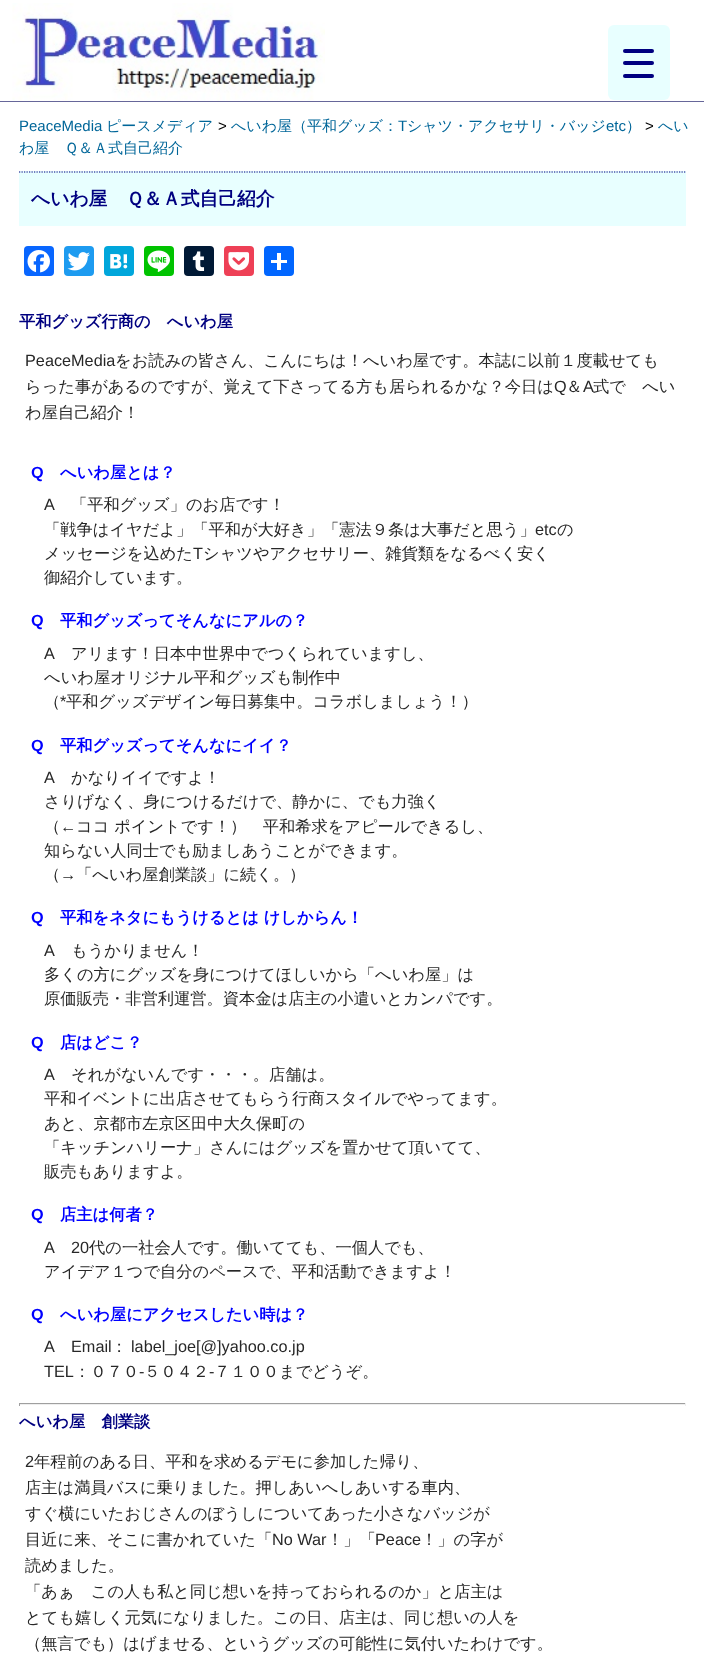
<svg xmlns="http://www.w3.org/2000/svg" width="704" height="1665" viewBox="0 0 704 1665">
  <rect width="100%" height="100%" fill="#ffffff"/>
  <rect x="608" y="25" width="62" height="75" rx="6" fill="#e8ffff"/>
  <rect x="623" y="61" width="31" height="4" rx="2" fill="#000080"/>
  <rect x="623" y="49" width="31" height="4" rx="2" fill="#000080"/>
  <rect x="623" y="74" width="31" height="4" rx="2" fill="#000080"/>
  <image x="12" y="3" width="313" height="98" href="img1.png"/>
  <rect x="0" y="101" width="704" height="1" fill="#666699"/>
  <text x="19" y="131" font-family="Liberation Sans" font-size="15" fill="#006699">PeaceMedia</text>
  <text x="106" y="131" font-family="WenQuanYi Zen Hei" font-size="15" font-weight="500" fill="#006699">ピースメディア</text>
  <text x="218" y="131" font-family="Liberation Sans" font-size="15" fill="#000000">&gt;</text>
  <text x="231" y="131" font-family="WenQuanYi Zen Hei" font-size="15" font-weight="500" fill="#006699">へいわ屋（平和グッズ：</text>
  <text x="398" y="131" font-family="Liberation Sans" font-size="15" fill="#006699">T</text>
  <text x="407" y="131" font-family="WenQuanYi Zen Hei" font-size="15" font-weight="500" fill="#006699">シャツ・アクセサリ・バッジ</text>
  <text x="606" y="131" font-family="Liberation Sans" font-size="15" fill="#006699">etc</text>
  <text x="626" y="131" font-family="WenQuanYi Zen Hei" font-size="15" font-weight="500" fill="#006699">）</text>
  <text x="645" y="131" font-family="Liberation Sans" font-size="15" fill="#000000">&gt;</text>
  <text x="658" y="131" font-family="WenQuanYi Zen Hei" font-size="15" font-weight="500" fill="#006699">へい</text>
  <text x="19" y="153" font-family="WenQuanYi Zen Hei" font-size="15" font-weight="500" fill="#006699">わ屋　Ｑ＆Ａ式自己紹介</text>
  <rect x="19" y="171" width="667" height="55" fill="#e8ffff"/>
  <path d="M19 172H686" fill="none" stroke="#000080" stroke-width="1.2" stroke-dasharray="1.25 1.25"/>
  <text x="31" y="205" font-family="WenQuanYi Zen Hei" font-size="18.75" font-weight="bold" fill="#000080">へいわ屋　Ｑ＆Ａ式自己紹介</text>
  <rect x="24" y="246" width="30" height="30" rx="4" fill="#0866ff"/>
  <image x="27" y="250" width="23" height="23" href="img2.png"/>
  <rect x="64" y="246" width="30" height="30" rx="4" fill="#1d9bf0"/>
  <image x="67" y="252" width="23" height="19" href="img3.png"/>
  <rect x="104" y="246" width="30" height="30" rx="4" fill="#00a6db"/>
  <image x="110" y="254" width="18" height="15" href="img4.png"/>
  <rect x="144" y="246" width="30" height="30" rx="4" fill="#00c300"/>
  <image x="147" y="250" width="23" height="22" href="img5.png"/>
  <rect x="184" y="246" width="30" height="30" rx="4" fill="#001935"/>
  <image x="192" y="251" width="13" height="20" href="img6.png"/>
  <rect x="224" y="246" width="30" height="30" rx="4" fill="#ee4056"/>
  <image x="228" y="252" width="22" height="19" href="img7.png"/>
  <rect x="264" y="246" width="30" height="30" rx="4" fill="#0166ff"/>
  <rect x="277" y="253" width="4" height="17" fill="#ffffff"/>
  <rect x="271" y="260" width="16" height="3" fill="#ffffff"/>
  <text x="19" y="327" font-family="WenQuanYi Zen Hei" font-size="16.25" font-weight="bold" fill="#000080">平和グッズ行商の　へいわ屋</text>
  <text x="25" y="366" font-family="Liberation Sans" font-size="16.25" fill="#272727">PeaceMedia</text>
  <text x="115" y="366" font-family="WenQuanYi Zen Hei" font-size="16.25" font-weight="500" fill="#272727">をお読みの皆さん、こんにちは！へいわ屋です。本誌に以前１度載せても</text>
  <text x="25" y="392" font-family="WenQuanYi Zen Hei" font-size="16.25" font-weight="500" fill="#272727">らった事があるのですが、覚えて下さってる方も居られるかな？今日は</text>
  <text x="554" y="392" font-family="Liberation Sans" font-size="16.25" fill="#272727">Q</text>
  <text x="566" y="392" font-family="WenQuanYi Zen Hei" font-size="16.25" font-weight="500" fill="#272727">＆</text>
  <text x="583" y="392" font-family="Liberation Sans" font-size="16.25" fill="#272727">A</text>
  <text x="593" y="392" font-family="WenQuanYi Zen Hei" font-size="16.25" font-weight="500" fill="#272727">式で　へい</text>
  <text x="25" y="418" font-family="WenQuanYi Zen Hei" font-size="16.25" font-weight="500" fill="#272727">わ屋自己紹介！</text>
  <text x="31" y="478" font-family="Liberation Sans" font-size="16.25" font-weight="bold" fill="#0000ff">Q</text>
  <text x="60" y="478" font-family="WenQuanYi Zen Hei" font-size="16.25" font-weight="bold" fill="#0000ff">へいわ屋とは？</text>
  <text x="44" y="510" font-family="Liberation Sans" font-size="16.25" fill="#272727">A</text>
  <text x="71" y="510" font-family="WenQuanYi Zen Hei" font-size="16.25" font-weight="500" fill="#272727">「平和グッズ」のお店です！</text>
  <text x="44" y="535" font-family="WenQuanYi Zen Hei" font-size="16.25" font-weight="500" fill="#272727">「戦争はイヤだよ」「平和が大好き」「憲法９条は大事だと思う」</text>
  <text x="535" y="535" font-family="Liberation Sans" font-size="16.25" fill="#272727">etc</text>
  <text x="557" y="535" font-family="WenQuanYi Zen Hei" font-size="16.25" font-weight="500" fill="#272727">の</text>
  <text x="44" y="559" font-family="WenQuanYi Zen Hei" font-size="16.25" font-weight="500" fill="#272727">メッセージを込めた</text>
  <text x="193" y="559" font-family="Liberation Sans" font-size="16.25" fill="#272727">T</text>
  <text x="203" y="559" font-family="WenQuanYi Zen Hei" font-size="16.25" font-weight="500" fill="#272727">シャツやアクセサリー、雑貨類をなるべく安く</text>
  <text x="44" y="583" font-family="WenQuanYi Zen Hei" font-size="16.25" font-weight="500" fill="#272727">御紹介しています。</text>
  <text x="31" y="626" font-family="Liberation Sans" font-size="16.25" font-weight="bold" fill="#0000ff">Q</text>
  <text x="60" y="626" font-family="WenQuanYi Zen Hei" font-size="16.25" font-weight="bold" fill="#0000ff">平和グッズってそんなにアルの？</text>
  <text x="44" y="659" font-family="Liberation Sans" font-size="16.25" fill="#272727">A</text>
  <text x="71" y="659" font-family="WenQuanYi Zen Hei" font-size="16.25" font-weight="500" fill="#272727">アリます！日本中世界中でつくられていますし、</text>
  <text x="44" y="683" font-family="WenQuanYi Zen Hei" font-size="16.25" font-weight="500" fill="#272727">へいわ屋オリジナル平和グッズも制作中</text>
  <text x="44" y="707" font-family="WenQuanYi Zen Hei" font-size="16.25" font-weight="500" fill="#272727">（</text>
  <text x="60" y="707" font-family="Liberation Sans" font-size="16.25" fill="#272727">*</text>
  <text x="66" y="707" font-family="WenQuanYi Zen Hei" font-size="16.25" font-weight="500" fill="#272727">平和グッズデザイン毎日募集中。コラボしましょう！）</text>
  <text x="31" y="751" font-family="Liberation Sans" font-size="16.25" font-weight="bold" fill="#0000ff">Q</text>
  <text x="60" y="751" font-family="WenQuanYi Zen Hei" font-size="16.25" font-weight="bold" fill="#0000ff">平和グッズってそんなにイイ？</text>
  <text x="44" y="783" font-family="Liberation Sans" font-size="16.25" fill="#272727">A</text>
  <text x="71" y="783" font-family="WenQuanYi Zen Hei" font-size="16.25" font-weight="500" fill="#272727">かなりイイですよ！</text>
  <text x="44" y="807" font-family="WenQuanYi Zen Hei" font-size="16.25" font-weight="500" fill="#272727">さりげなく、身につけるだけで、静かに、でも力強く</text>
  <text x="44" y="832" font-family="WenQuanYi Zen Hei" font-size="16.25" font-weight="500" fill="#272727">（</text>
  <text x="60" y="832" font-family="Liberation Sans" font-size="16.25" fill="#272727">←</text>
  <text x="76" y="832" font-family="WenQuanYi Zen Hei" font-size="16.25" font-weight="500" fill="#272727">ココ ポイントです！）　平和希求をアピールできるし、</text>
  <text x="44" y="856" font-family="WenQuanYi Zen Hei" font-size="16.25" font-weight="500" fill="#272727">知らない人同士でも励ましあうことができます。</text>
  <text x="44" y="880" font-family="WenQuanYi Zen Hei" font-size="16.25" font-weight="500" fill="#272727">（</text>
  <text x="60" y="880" font-family="Liberation Sans" font-size="16.25" fill="#272727">→</text>
  <text x="76" y="880" font-family="WenQuanYi Zen Hei" font-size="16.25" font-weight="500" fill="#272727">「へいわ屋創業談」に続く。）</text>
  <text x="31" y="923" font-family="Liberation Sans" font-size="16.25" font-weight="bold" fill="#0000ff">Q</text>
  <text x="60" y="923" font-family="WenQuanYi Zen Hei" font-size="16.25" font-weight="bold" fill="#0000ff">平和をネタにもうけるとは けしからん！</text>
  <text x="44" y="956" font-family="Liberation Sans" font-size="16.25" fill="#272727">A</text>
  <text x="71" y="956" font-family="WenQuanYi Zen Hei" font-size="16.25" font-weight="500" fill="#272727">もうかりません！</text>
  <text x="44" y="980" font-family="WenQuanYi Zen Hei" font-size="16.25" font-weight="500" fill="#272727">多くの方にグッズを身につけてほしいから「へいわ屋」は</text>
  <text x="44" y="1004" font-family="WenQuanYi Zen Hei" font-size="16.25" font-weight="500" fill="#272727">原価販売・非営利運営。資本金は店主の小遣いとカンパです。</text>
  <text x="31" y="1048" font-family="Liberation Sans" font-size="16.25" font-weight="bold" fill="#0000ff">Q</text>
  <text x="60" y="1048" font-family="WenQuanYi Zen Hei" font-size="16.25" font-weight="bold" fill="#0000ff">店はどこ？</text>
  <text x="44" y="1080" font-family="Liberation Sans" font-size="16.25" fill="#272727">A</text>
  <text x="71" y="1080" font-family="WenQuanYi Zen Hei" font-size="16.25" font-weight="500" fill="#272727">それがないんです・・・。店舗は。</text>
  <text x="44" y="1104" font-family="WenQuanYi Zen Hei" font-size="16.25" font-weight="500" fill="#272727">平和イベントに出店させてもらう行商スタイルでやってます。</text>
  <text x="44" y="1129" font-family="WenQuanYi Zen Hei" font-size="16.25" font-weight="500" fill="#272727">あと、京都市左京区田中大久保町の</text>
  <text x="44" y="1153" font-family="WenQuanYi Zen Hei" font-size="16.25" font-weight="500" fill="#272727">「キッチンハリーナ」さんにはグッズを置かせて頂いてて、</text>
  <text x="44" y="1177" font-family="WenQuanYi Zen Hei" font-size="16.25" font-weight="500" fill="#272727">販売もありますよ。</text>
  <text x="31" y="1220" font-family="Liberation Sans" font-size="16.25" font-weight="bold" fill="#0000ff">Q</text>
  <text x="60" y="1220" font-family="WenQuanYi Zen Hei" font-size="16.25" font-weight="bold" fill="#0000ff">店主は何者？</text>
  <text x="44" y="1253" font-family="Liberation Sans" font-size="16.25" fill="#272727">A</text>
  <text x="71" y="1253" font-family="Liberation Sans" font-size="16.25" fill="#272727">20</text>
  <text x="89" y="1253" font-family="WenQuanYi Zen Hei" font-size="16.25" font-weight="500" fill="#272727">代の一社会人です。働いてても、一個人でも、</text>
  <text x="44" y="1277" font-family="WenQuanYi Zen Hei" font-size="16.25" font-weight="500" fill="#272727">アイデア１つで自分のペースで、平和活動できますよ！</text>
  <text x="31" y="1320" font-family="Liberation Sans" font-size="16.25" font-weight="bold" fill="#0000ff">Q</text>
  <text x="60" y="1320" font-family="WenQuanYi Zen Hei" font-size="16.25" font-weight="bold" fill="#0000ff">へいわ屋にアクセスしたい時は？</text>
  <text x="44" y="1352" font-family="Liberation Sans" font-size="16.25" fill="#272727">A</text>
  <text x="71" y="1352" font-family="Liberation Sans" font-size="16.25" fill="#272727">Email</text>
  <text x="111" y="1352" font-family="WenQuanYi Zen Hei" font-size="16.25" font-weight="500" fill="#272727">：</text>
  <text x="131" y="1352" font-family="Liberation Sans" font-size="16.25" fill="#272727">label_joe[@]yahoo.co.jp</text>
  <text x="44" y="1377" font-family="Liberation Sans" font-size="16.25" fill="#272727">TEL</text>
  <text x="74" y="1377" font-family="WenQuanYi Zen Hei" font-size="16.25" font-weight="500" fill="#272727">：０７０</text>
  <text x="139" y="1377" font-family="Liberation Sans" font-size="16.25" fill="#272727">-</text>
  <text x="144" y="1377" font-family="WenQuanYi Zen Hei" font-size="16.25" font-weight="500" fill="#272727">５０４２</text>
  <text x="209" y="1377" font-family="Liberation Sans" font-size="16.25" fill="#272727">-</text>
  <text x="214" y="1377" font-family="WenQuanYi Zen Hei" font-size="16.25" font-weight="500" fill="#272727">７１００までどうぞ。</text>
  <rect x="19" y="1403" width="667" height="1" fill="#9f9f9f"/>
  <rect x="685" y="1403" width="1" height="3" fill="#eeeeee"/>
  <rect x="19" y="1404" width="667" height="1" fill="#eeeeee"/>
  <rect x="19" y="1403" width="1" height="3" fill="#9f9f9f"/>
  <text x="19" y="1427" font-family="WenQuanYi Zen Hei" font-size="16.25" font-weight="bold" fill="#000080">へいわ屋　創業談</text>
  <text x="25" y="1467" font-family="Liberation Sans" font-size="16.25" fill="#272727">2</text>
  <text x="34" y="1467" font-family="WenQuanYi Zen Hei" font-size="16.25" font-weight="500" fill="#272727">年程前のある日、平和を求めるデモに参加した帰り、</text>
  <text x="25" y="1493" font-family="WenQuanYi Zen Hei" font-size="16.25" font-weight="500" fill="#272727">店主は満員バスに乗りました。押しあいへしあいする車内、</text>
  <text x="25" y="1519" font-family="WenQuanYi Zen Hei" font-size="16.25" font-weight="500" fill="#272727">すぐ横にいたおじさんのぼうしについてあった小さなバッジが</text>
  <text x="25" y="1545" font-family="WenQuanYi Zen Hei" font-size="16.25" font-weight="500" fill="#272727">目近に来、そこに書かれていた「</text>
  <text x="272" y="1545" font-family="Liberation Sans" font-size="16.25" fill="#272727">No War</text>
  <text x="327" y="1545" font-family="WenQuanYi Zen Hei" font-size="16.25" font-weight="500" fill="#272727">！」「</text>
  <text x="375" y="1545" font-family="Liberation Sans" font-size="16.25" fill="#272727">Peace</text>
  <text x="421" y="1545" font-family="WenQuanYi Zen Hei" font-size="16.25" font-weight="500" fill="#272727">！」の字が</text>
  <text x="25" y="1571" font-family="WenQuanYi Zen Hei" font-size="16.25" font-weight="500" fill="#272727">読めました。</text>
  <text x="25" y="1597" font-family="WenQuanYi Zen Hei" font-size="16.25" font-weight="500" fill="#272727">「あぁ　この人も私と同じ想いを持っておられるのか」と店主は</text>
  <text x="25" y="1623" font-family="WenQuanYi Zen Hei" font-size="16.25" font-weight="500" fill="#272727">とても嬉しく元気になりました。この日、店主は、同じ想いの人を</text>
  <text x="25" y="1649" font-family="WenQuanYi Zen Hei" font-size="16.25" font-weight="500" fill="#272727">（無言でも）はげませる、というグッズの可能性に気付いたわけです。</text>
</svg>
